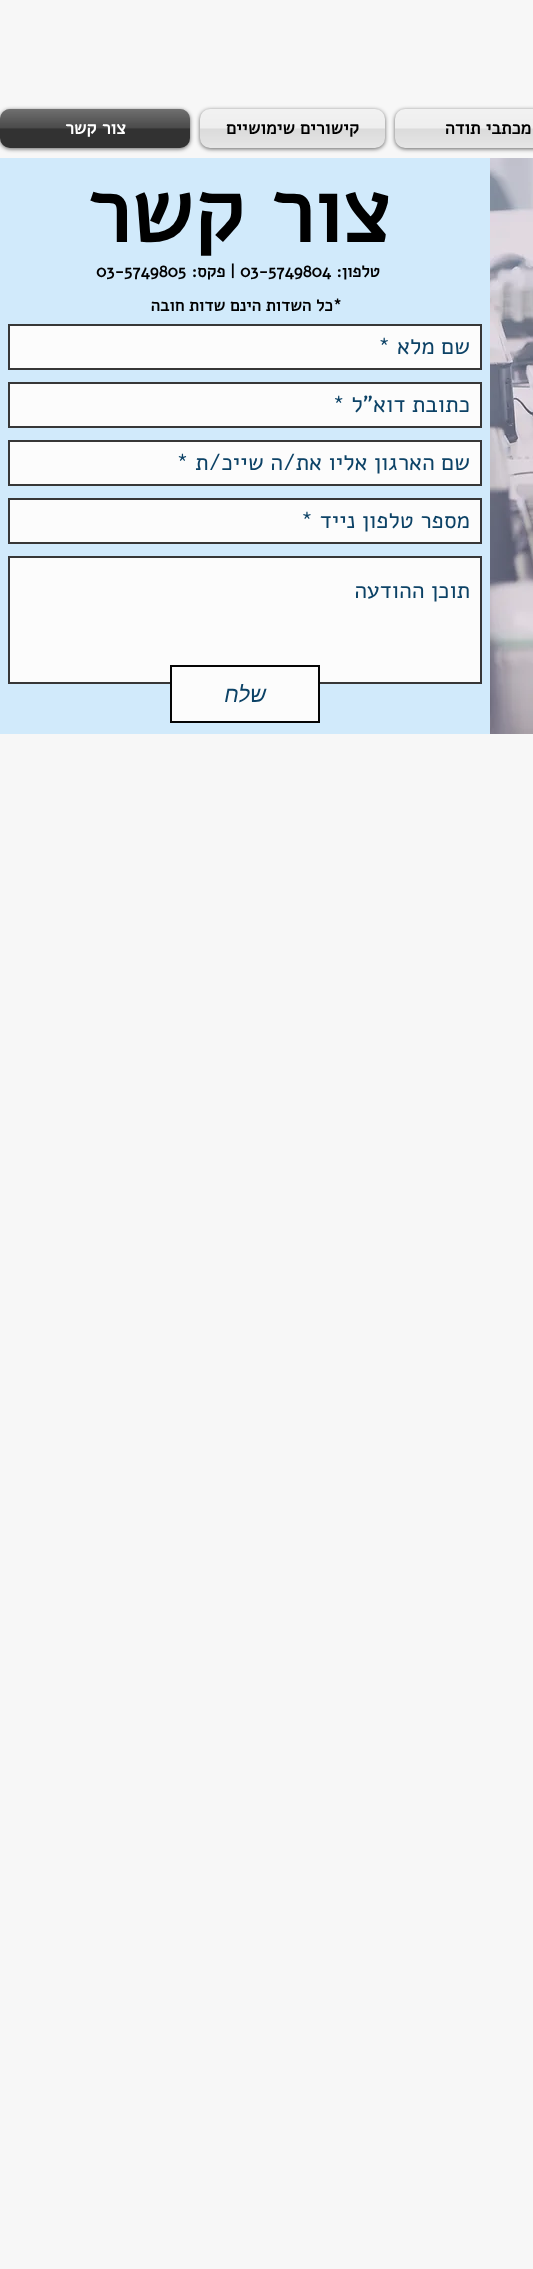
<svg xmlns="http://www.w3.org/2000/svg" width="533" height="2269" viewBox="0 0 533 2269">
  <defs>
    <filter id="blur1" x="-50%" y="-200%" width="200%" height="500%"><feGaussianBlur stdDeviation="2"/></filter>
  </defs>
  <rect width="100%" height="100%" fill="#f7f7f7"/>
  <rect x="395" y="110" width="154" height="39" rx="10" fill="#000000" fill-opacity="0.6" filter="url(#blur1)"/>
  <rect x="395" y="109" width="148" height="39" rx="10" fill="#ececec"/>
  <image x="395" y="109" width="138" height="39" href="img1.png"/>
  <text x="531" y="134" font-family="Alef" font-size="18" font-weight="bold" direction="rtl" fill="#000000">מכתבי תודה</text>
  <rect x="200" y="110" width="185" height="39" rx="10" fill="#000000" fill-opacity="0.6" filter="url(#blur1)"/>
  <rect x="200" y="109" width="185" height="39" rx="10" fill="#ececec"/>
  <image x="200" y="109" width="185" height="39" href="img2.png"/>
  <text x="359" y="134" font-family="Alef" font-size="18" font-weight="bold" direction="rtl" fill="#000000">קישורים שימושיים</text>
  <rect x="0" y="110" width="190" height="39" rx="10" fill="#000000" fill-opacity="0.6" filter="url(#blur1)"/>
  <rect x="0" y="109" width="190" height="39" rx="10" fill="#323232"/>
  <image x="0" y="109" width="190" height="20" href="img3.png"/>
  <text x="126" y="134" font-family="Alef" font-size="18" font-weight="bold" direction="rtl" fill="#ffffff">צור קשר</text>
  <image x="490" y="158" width="43" height="576" href="img4.png"/>
  <rect x="0" y="158" width="490" height="576" fill="#d1eafb"/>
  <text x="391" y="242" font-family="Alef" font-size="90" font-weight="bold" direction="rtl" fill="#000000">צור קשר</text>
  <rect x="9" y="325" width="472" height="44" fill="#fcfcfc" stroke="#373737" stroke-width="2"/>
  <text x="470" y="354" font-family="Alef" font-size="23" direction="rtl" fill="#0c4266">שם מלא *</text>
  <rect x="9" y="383" width="472" height="44" fill="#fcfcfc" stroke="#373737" stroke-width="2"/>
  <text x="470" y="412" font-family="Alef" font-size="23" direction="rtl" fill="#0c4266">כתובת דוא"ל *</text>
  <rect x="9" y="441" width="472" height="44" fill="#fcfcfc" stroke="#373737" stroke-width="2"/>
  <text x="470" y="470" font-family="Alef" font-size="23" direction="rtl" fill="#0c4266">שם הארגון אליו את/ה שייכ/ת *</text>
  <rect x="9" y="499" width="472" height="44" fill="#fcfcfc" stroke="#373737" stroke-width="2"/>
  <text x="470" y="528" font-family="Alef" font-size="23" direction="rtl" fill="#0c4266">מספר טלפון נייד *</text>
  <rect x="9" y="557" width="472" height="126" fill="#fcfcfc" stroke="#373737" stroke-width="2"/>
  <text x="470" y="598" font-family="Alef" font-size="23" direction="rtl" fill="#0c4266">תוכן ההודעה</text>
  <rect x="172" y="682" width="146" height="39" fill="#fcfcfc"/>
  <rect x="171" y="666" width="148" height="56" fill="none" stroke="#050505" stroke-width="2"/>
  <text x="266" y="702" font-family="Liberation Sans" font-size="22" font-style="italic" direction="rtl" fill="#0c4266">שלח</text>
  <text x="380" y="277" font-family="Alef" font-size="17" font-weight="bold" direction="rtl" fill="#000000">טלפון:</text>
  <text x="240" y="277" font-family="Alef" font-size="17" font-weight="bold" fill="#000000">03-5749804</text>
  <text x="235" y="277" font-family="Alef" font-size="17" font-weight="bold" direction="rtl" fill="#000000">| פקס:</text>
  <text x="96" y="277" font-family="Alef" font-size="17" font-weight="bold" fill="#000000">03-5749805</text>
  <text x="342" y="311" font-family="Alef" font-size="17" font-weight="bold" direction="rtl" fill="#000000">*כל השדות הינם שדות חובה</text>
</svg>
